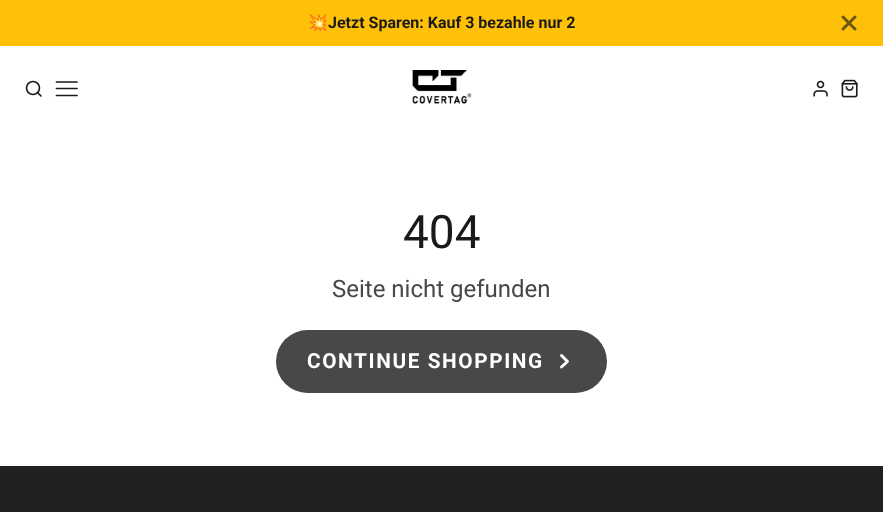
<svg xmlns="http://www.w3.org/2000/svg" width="883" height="512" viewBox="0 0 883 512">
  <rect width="100%" height="100%" fill="#ffffff"/>
  <rect x="0" y="0" width="883" height="46" fill="#ffc107"/>
  <text x="308" y="28" font-family="Noto Color Emoji" font-size="16" font-weight="bold" fill="#1a1b18">💥</text>
  <text x="328" y="28" font-family="Roboto" font-size="16" font-weight="bold" fill="#1a1b18">Jetzt Sparen: Kauf 3 bezahle nur 2</text>
  <path d="M855 17L843 29M843 17L855 29" fill="none" stroke="#6c5712" stroke-width="3" stroke-linecap="round" stroke-linejoin="round"/>
  <circle cx="33" cy="88" r="6.5" fill="none" stroke="#1a1b18" stroke-width="1.6"/>
  <path d="M41 96L37.5 92.5" fill="none" stroke="#1a1b18" stroke-width="1.6" stroke-linecap="round" stroke-linejoin="round"/>
  <path d="M56.5 88.5H77M56.5 82H77M56.5 95.5H77" fill="none" stroke="#1a1b18" stroke-width="1.7" stroke-linecap="round" stroke-linejoin="round"/>
  <image x="412" y="70" width="60" height="34" href="img1.png"/>
  <image x="813" y="80" width="15" height="17" href="img2.png"/>
  <image x="841" y="79" width="17" height="19" href="img3.png"/>
  <text x="403" y="248" font-family="Roboto" font-size="46" fill="#1a1b18">404</text>
  <text x="332" y="297" font-family="Roboto" font-size="24" fill="#484946">Seite nicht gefunden</text>
  <rect x="276" y="330" width="331" height="63" rx="31.5" fill="#484946"/>
  <text x="307" y="368" font-family="Roboto" font-size="20.75" font-weight="bold" letter-spacing="1.6" fill="#ffffff">CONTINUE SHOPPING</text>
  <path d="M561.5 367L567.5 361.5L561.5 355.5" fill="none" stroke="#ffffff" stroke-width="2.9" stroke-linecap="round" stroke-linejoin="round"/>
  <rect x="0" y="466" width="883" height="46" fill="#212121"/>
</svg>
